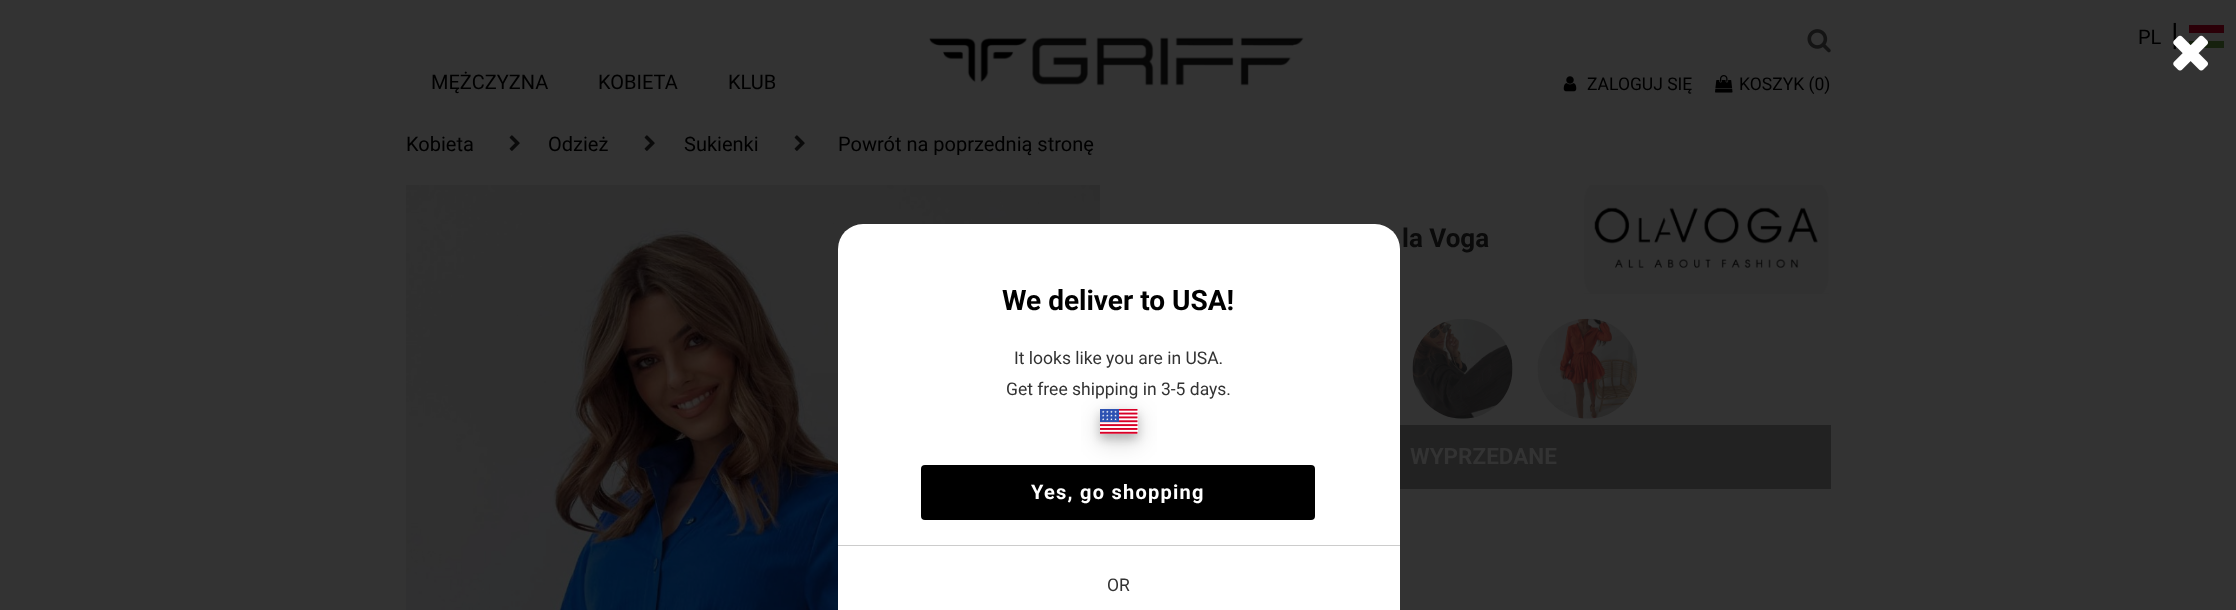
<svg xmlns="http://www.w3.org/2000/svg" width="2236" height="610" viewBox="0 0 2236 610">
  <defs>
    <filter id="blur1" x="-50%" y="-200%" width="200%" height="500%"><feGaussianBlur stdDeviation="12.5"/></filter>
    <filter id="blur2" x="-50%" y="-200%" width="200%" height="500%"><feGaussianBlur stdDeviation="5"/></filter>
  </defs>
  <rect width="100%" height="100%" fill="#333333"/>
  <image x="929" y="37" width="375" height="49" href="img1.png"/>
  <image x="1807" y="29" width="24" height="24" href="img2.png"/>
  <text x="2138" y="44" font-family="Roboto" font-size="20" fill="#000000">PL</text>
  <text x="2171" y="45" font-family="Roboto" font-size="31" fill="#000000">|</text>
  <rect x="2189" y="25" width="35" height="8" fill="#2b0008"/>
  <rect x="2189" y="41" width="35" height="7" fill="#16210e"/>
  <text x="431" y="89" font-family="Roboto" font-size="20" fill="#000000">MĘŻCZYZNA</text>
  <text x="598" y="89" font-family="Roboto" font-size="20" fill="#000000">KOBIETA</text>
  <text x="728" y="89" font-family="Roboto" font-size="20" fill="#000000">KLUB</text>
  <image x="1563" y="76" width="14" height="16" href="img3.png"/>
  <text x="1587" y="90" font-family="Roboto" font-size="17.5" fill="#000000">ZALOGUJ SIĘ</text>
  <image x="1715" y="75" width="18" height="18" href="img4.png"/>
  <text x="1739" y="90" font-family="Roboto" font-size="17.5" fill="#000000">KOSZYK (0)</text>
  <text x="406" y="151" font-family="Roboto" font-size="20" fill="#000000">Kobieta</text>
  <image x="509" y="135" width="11" height="16" href="img5.png"/>
  <text x="548" y="151" font-family="Roboto" font-size="20" fill="#000000">Odzież</text>
  <image x="644" y="135" width="11" height="16" href="img5.png"/>
  <text x="684" y="151" font-family="Roboto" font-size="20" fill="#000000">Sukienki</text>
  <image x="794" y="135" width="11" height="16" href="img5.png"/>
  <text x="838" y="151" font-family="Roboto" font-size="20" fill="#000000">Powrót na poprzednią stronę</text>
  <image x="406" y="185" width="694" height="425" href="img6.png"/>
  <text x="1402" y="247" font-family="Roboto" font-size="26" font-weight="bold" fill="#0a0a0a">la Voga</text>
  <image x="1584" y="185" width="245" height="109" href="img7.png"/>
  <image x="1412" y="319" width="101" height="100" href="img8.png"/>
  <image x="1537" y="318" width="101" height="101" href="img9.png"/>
  <rect x="1400" y="425" width="431" height="64" fill="#222222"/>
  <text x="1410" y="464" font-family="Roboto" font-size="22.5" font-weight="bold" fill="#333333">WYPRZEDANE</text>
  <image x="2173" y="35" width="35" height="36" href="img10.png"/>
  <rect x="838" y="224" width="562" height="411" rx="25" fill="#ffffff"/>
  <text x="1002" y="310" font-family="Roboto" font-size="28" font-weight="bold" fill="#000000">We deliver to USA!</text>
  <text x="1014" y="364" font-family="Roboto" font-size="17.5" fill="#333333">It looks like you are in USA.</text>
  <rect x="1100" y="416" width="38" height="25" fill="#000000" fill-opacity="0.19" filter="url(#blur1)"/>
  <rect x="1100" y="414" width="38" height="25" fill="#000000" fill-opacity="0.2" filter="url(#blur2)"/>
  <image x="1100" y="409" width="38" height="25" href="img11.png"/>
  <text x="1006" y="395" font-family="Roboto" font-size="17.5" fill="#333333">Get free shipping in 3-5 days.</text>
  <rect x="921" y="465" width="394" height="55" rx="4" fill="#000000"/>
  <text x="1031" y="499" font-family="Roboto" font-size="20" font-weight="bold" letter-spacing="1.25" fill="#ffffff">Yes, go shopping</text>
  <rect x="838" y="545" width="562" height="1" fill="#cccccc"/>
  <text x="1107" y="591" font-family="Roboto" font-size="17.5" fill="#333333">OR</text>
</svg>
